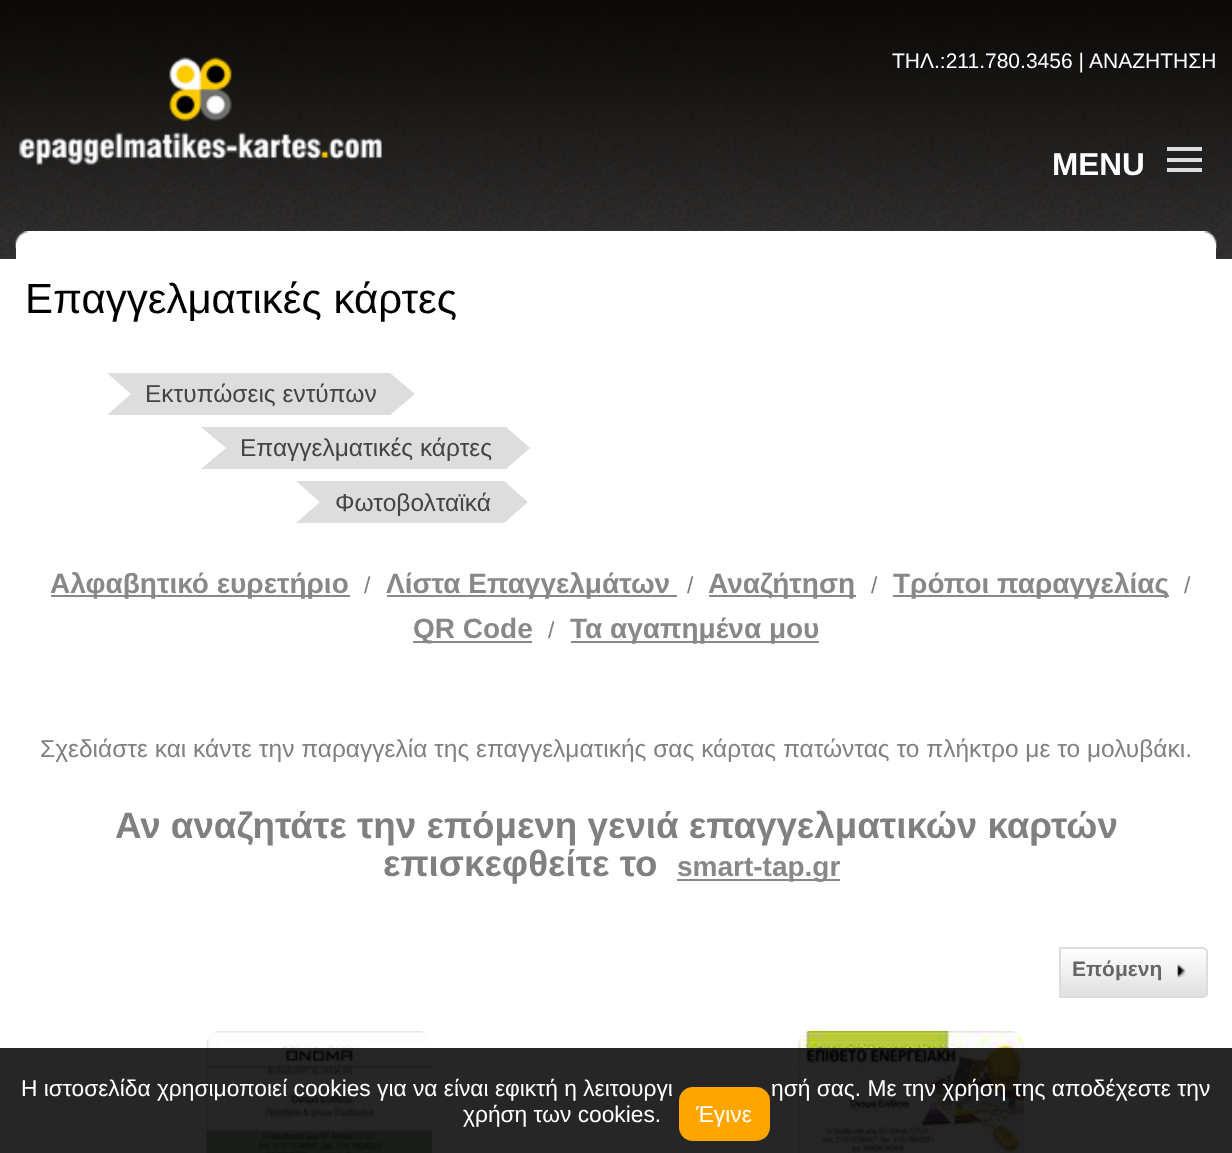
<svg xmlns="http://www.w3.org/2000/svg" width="1232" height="1153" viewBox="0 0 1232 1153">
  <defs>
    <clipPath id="clip1"><path d="M1059 947H1203C1206 947 1208 949 1208 952V993C1208 996 1206 998 1203 998H1059Z"/></clipPath>
    <linearGradient id="g1" gradientUnits="userSpaceOnUse" x1="1133" y1="949" x2="1133" y2="996"><stop offset="0" stop-color="#ffffff"/><stop offset="1" stop-color="#e0e0e0"/></linearGradient>
  </defs>
  <rect width="100%" height="100%" fill="#ffffff"/>
  <image x="0" y="0" width="1232" height="259" href="img1.png"/>
  <image x="18" y="57" width="364" height="108" href="img2.png"/>
  <text x="892" y="68" font-family="Liberation Sans" font-size="21" fill="#ffffff">ΤΗΛ.:211.780.3456 |</text>
  <text x="1089" y="68" font-family="Liberation Sans" font-size="21" fill="#ffffff">ΑΝΑΖΗΤΗΣΗ</text>
  <rect x="1167" y="147" width="35" height="4" fill="#dddddd"/>
  <text x="1052" y="175" font-family="Liberation Sans" font-size="31.5" font-weight="bold" fill="#ffffff">MENU</text>
  <rect x="1167" y="158" width="35" height="4" fill="#dddddd"/>
  <rect x="1167" y="168" width="35" height="4" fill="#dddddd"/>
  <rect x="16" y="231" width="1200" height="28" fill="#ffffff"/>
  <image x="15" y="231" width="14" height="18" href="img3.png"/>
  <image x="1203" y="231" width="14" height="18" href="img4.png"/>
  <text x="25" y="313" font-family="Liberation Sans" font-size="42" fill="#000000">Επαγγελματικές κάρτες</text>
  <rect x="131" y="373" width="259" height="42" fill="#dddddd"/>
  <path d="M107 373H131V394ZM131 415H107L131 394Z" fill="#dddddd"/>
  <text x="145" y="402" font-family="Liberation Sans" font-size="24.5" fill="#444444">Εκτυπώσεις εντύπων</text>
  <path d="M390 415V373L415 394Z" fill="#dddddd"/>
  <rect x="226" y="427" width="280" height="42" fill="#dddddd"/>
  <path d="M201 427H226V448ZM226 469H201L226 448Z" fill="#dddddd"/>
  <text x="240" y="456" font-family="Liberation Sans" font-size="24.5" fill="#444444">Επαγγελματικές κάρτες</text>
  <path d="M506 469V427L530 448Z" fill="#dddddd"/>
  <rect x="320" y="481" width="184" height="42" fill="#dddddd"/>
  <path d="M296 481H320V502ZM320 523H296L320 502Z" fill="#dddddd"/>
  <text x="335" y="511" font-family="Liberation Sans" font-size="24.5" fill="#444444">Φωτοβολταϊκά</text>
  <path d="M504 523V481L528 502Z" fill="#dddddd"/>
  <rect x="51" y="595" width="299" height="2" fill="#888888"/>
  <text x="50" y="593" font-family="Liberation Sans" font-size="28" font-weight="bold" fill="#888888">Αλφαβητικό ευρετήριο</text>
  <text x="364" y="593" font-family="Liberation Sans" font-size="23" fill="#808080">/</text>
  <rect x="387" y="595" width="290" height="2" fill="#888888"/>
  <text x="386" y="593" font-family="Liberation Sans" font-size="28" font-weight="bold" fill="#888888">Λίστα Επαγγελμάτων</text>
  <text x="687" y="593" font-family="Liberation Sans" font-size="23" fill="#808080">/</text>
  <rect x="709" y="595" width="147" height="2" fill="#888888"/>
  <text x="708" y="593" font-family="Liberation Sans" font-size="28" font-weight="bold" fill="#888888">Αναζήτηση</text>
  <text x="871" y="593" font-family="Liberation Sans" font-size="23" fill="#808080">/</text>
  <rect x="893" y="595" width="276" height="2" fill="#888888"/>
  <text x="893" y="593" font-family="Liberation Sans" font-size="28" font-weight="bold" fill="#888888">Tρόποι παραγγελίας</text>
  <text x="1184" y="593" font-family="Liberation Sans" font-size="23" fill="#808080">/</text>
  <rect x="413" y="641" width="119" height="2" fill="#888888"/>
  <text x="413" y="638" font-family="Liberation Sans" font-size="28" font-weight="bold" fill="#888888">QR Code</text>
  <text x="548" y="638" font-family="Liberation Sans" font-size="23" fill="#808080">/</text>
  <rect x="571" y="641" width="248" height="2" fill="#888888"/>
  <text x="570" y="638" font-family="Liberation Sans" font-size="28" font-weight="bold" fill="#888888">Τα αγαπημένα μου</text>
  <text x="40" y="757" font-family="Liberation Sans" font-size="24.5" fill="#808080">Σχεδιάστε και κάντε την παραγγελία της επαγγελματικής σας κάρτας πατώντας το πλήκτρο με το μολυβάκι.</text>
  <text x="115" y="838" font-family="Liberation Sans" font-size="36.75" font-weight="bold" fill="#808080">Αν αναζητάτε την επόμενη γενιά επαγγελματικών καρτών</text>
  <text x="383" y="876" font-family="Liberation Sans" font-size="36.75" font-weight="bold" fill="#808080">επισκεφθείτε το</text>
  <rect x="677" y="879" width="163" height="2" fill="#888888"/>
  <text x="677" y="876" font-family="Liberation Sans" font-size="28" font-weight="bold" fill="#888888">smart-tap.gr</text>
  <g clip-path="url(#clip1)">
    <rect x="1061" y="949" width="147" height="47" fill="url(#g1)"/>
  </g>
  <path d="M1060 948H1203C1205 948 1207 950 1207 952V993C1207 995 1205 997 1203 997H1060Z" fill="none" stroke="#dddddd" stroke-width="2"/>
  <text x="1072" y="976" font-family="Liberation Sans" font-size="21" font-weight="bold" fill="#666666">Επόμενη</text>
  <image x="1177" y="964" width="9" height="14" href="img5.png"/>
  <image x="206" y="1031" width="227" height="122" href="img6.png"/>
  <image x="798" y="1030" width="226" height="123" href="img7.png"/>
  <rect x="0" y="1048" width="1232" height="105" fill="#000000" fill-opacity="0.85"/>
  <text x="21" y="1096" font-family="Liberation Sans" font-size="22.75" fill="#ffffff">Η ιστοσελίδα χρησιμοποιεί cookies για να είναι εφικτή η λειτουργι</text>
  <text x="771" y="1096" font-family="Liberation Sans" font-size="22.75" fill="#ffffff">ησή σας. Με την χρήση της αποδέχεστε την</text>
  <text x="463" y="1122" font-family="Liberation Sans" font-size="22.75" fill="#ffffff">χρήση των cookies.</text>
  <rect x="679" y="1087" width="91" height="54" rx="14" fill="#ffa500"/>
  <text x="696" y="1122" font-family="Liberation Sans" font-size="22.75" fill="#ffffff">Έγινε</text>
</svg>
